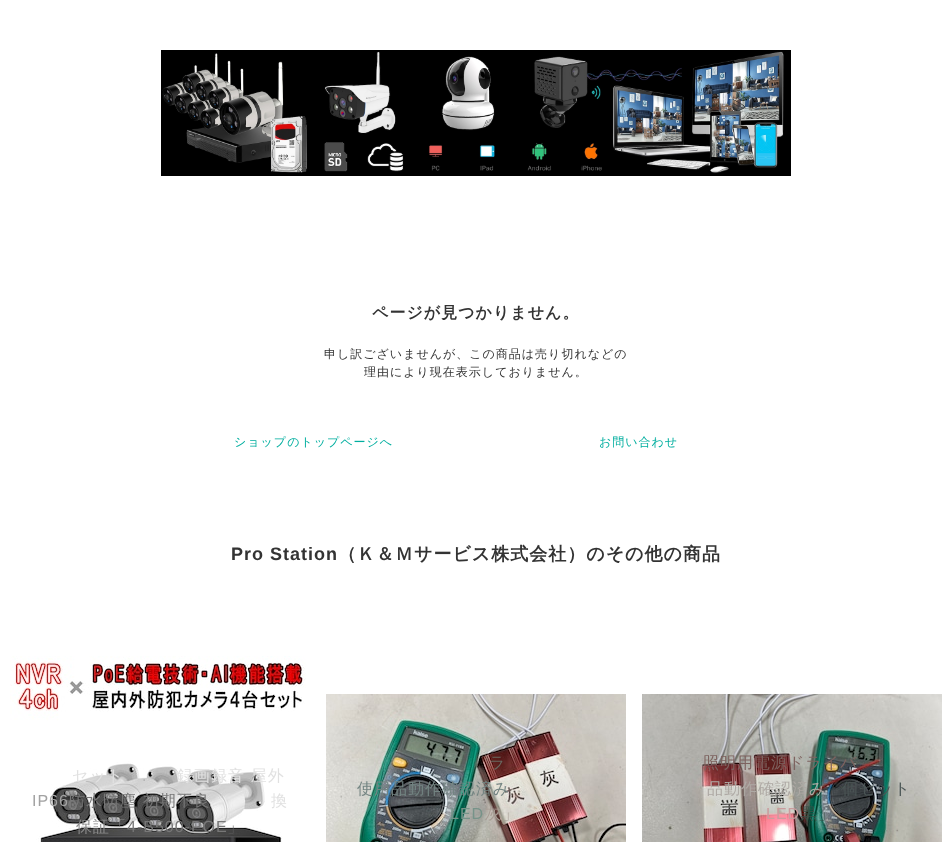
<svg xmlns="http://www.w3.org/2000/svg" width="952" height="842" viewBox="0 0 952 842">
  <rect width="100%" height="100%" fill="#ffffff"/>
  <image x="161" y="50" width="630" height="126" href="img1.png"/>
  <text x="372" y="318" font-family="WenQuanYi Zen Hei" font-size="16" font-weight="bold" letter-spacing="1" fill="#333333">ページが見つかりません。</text>
  <text x="324" y="358" font-family="WenQuanYi Zen Hei" font-size="12" font-weight="500" letter-spacing="1" fill="#333333">申し訳ございませんが、この商品は売り切れなどの</text>
  <text x="364" y="376" font-family="WenQuanYi Zen Hei" font-size="12" font-weight="500" letter-spacing="1" fill="#333333">理由により現在表示しておりません。</text>
  <text x="234" y="446" font-family="WenQuanYi Zen Hei" font-size="12" font-weight="500" letter-spacing="1" fill="#00ae9f">ショップのトップページへ</text>
  <text x="599" y="446" font-family="WenQuanYi Zen Hei" font-size="12" font-weight="500" letter-spacing="1" fill="#00ae9f">お問い合わせ</text>
  <text x="231" y="560" font-family="Liberation Sans" font-size="18" font-weight="bold" letter-spacing="1" fill="#333333">Pro Station</text>
  <text x="338" y="560" font-family="WenQuanYi Zen Hei" font-size="18" font-weight="bold" letter-spacing="1" fill="#333333">（Ｋ＆Ｍサービス株式会社）のその他の商品</text>
  <image x="10" y="656" width="296" height="186" href="img2.png"/>
  <text x="72" y="781" font-family="WenQuanYi Zen Hei" font-size="16" font-weight="500" letter-spacing="1" fill="#e1e1e1">セット</text>
  <text x="142" y="781" font-family="Liberation Sans" font-size="16" letter-spacing="1" fill="#b3b3b3">.</text>
  <text x="177" y="781" font-family="WenQuanYi Zen Hei" font-size="16" font-weight="500" letter-spacing="1" fill="#e1e1e1">録画録音 屋外</text>
  <text x="32" y="806" font-family="Liberation Sans" font-size="16" letter-spacing="1" fill="#a2a2a2">IP66</text>
  <text x="69" y="806" font-family="WenQuanYi Zen Hei" font-size="16" font-weight="500" letter-spacing="1" fill="#777777">防水防塵 初期不良</text>
  <text x="271" y="806" font-family="WenQuanYi Zen Hei" font-size="16" font-weight="500" letter-spacing="1" fill="#e1e1e1">換</text>
  <text x="76" y="832" font-family="WenQuanYi Zen Hei" font-size="16" font-weight="500" letter-spacing="1" fill="#8a8a8a">保証「</text>
  <text x="127" y="832" font-family="Liberation Sans" font-size="16" letter-spacing="1" fill="#777777">4-B500-POE</text>
  <text x="227" y="832" font-family="WenQuanYi Zen Hei" font-size="16" font-weight="500" letter-spacing="1" fill="#5e5e5e">」</text>
  <image x="326" y="694" width="300" height="148" href="img3.png"/>
  <text x="489" y="768" font-family="WenQuanYi Zen Hei" font-size="16" font-weight="500" letter-spacing="1" fill="#696860">ラ</text>
  <text x="357" y="794" font-family="WenQuanYi Zen Hei" font-size="16" font-weight="500" letter-spacing="1" fill="#738482">使用品動作確認済み</text>
  <text x="433" y="819" font-family="WenQuanYi Zen Hei" font-size="16" font-weight="500" letter-spacing="1" fill="#7e8081">「</text>
  <text x="450" y="819" font-family="Liberation Sans" font-size="16" letter-spacing="1" fill="#769389">LED</text>
  <text x="485" y="819" font-family="WenQuanYi Zen Hei" font-size="16" font-weight="500" letter-spacing="1" fill="#a79c94">灰」</text>
  <image x="642" y="694" width="300" height="148" href="img4.png"/>
  <text x="703" y="768" font-family="WenQuanYi Zen Hei" font-size="16" font-weight="500" letter-spacing="1" fill="#7d635f">照明用電源ドライバ</text>
  <text x="707" y="794" font-family="WenQuanYi Zen Hei" font-size="16" font-weight="500" letter-spacing="1" fill="#aea9a4">品動作確認済み</text>
  <text x="842" y="794" font-family="WenQuanYi Zen Hei" font-size="16" font-weight="500" letter-spacing="1" fill="#4b5555">個セット</text>
  <text x="766" y="819" font-family="Liberation Sans" font-size="16" letter-spacing="1" fill="#ca9c9e">LED</text>
  <text x="801" y="819" font-family="WenQuanYi Zen Hei" font-size="16" font-weight="500" letter-spacing="1" fill="#385348">黒」</text>
</svg>
